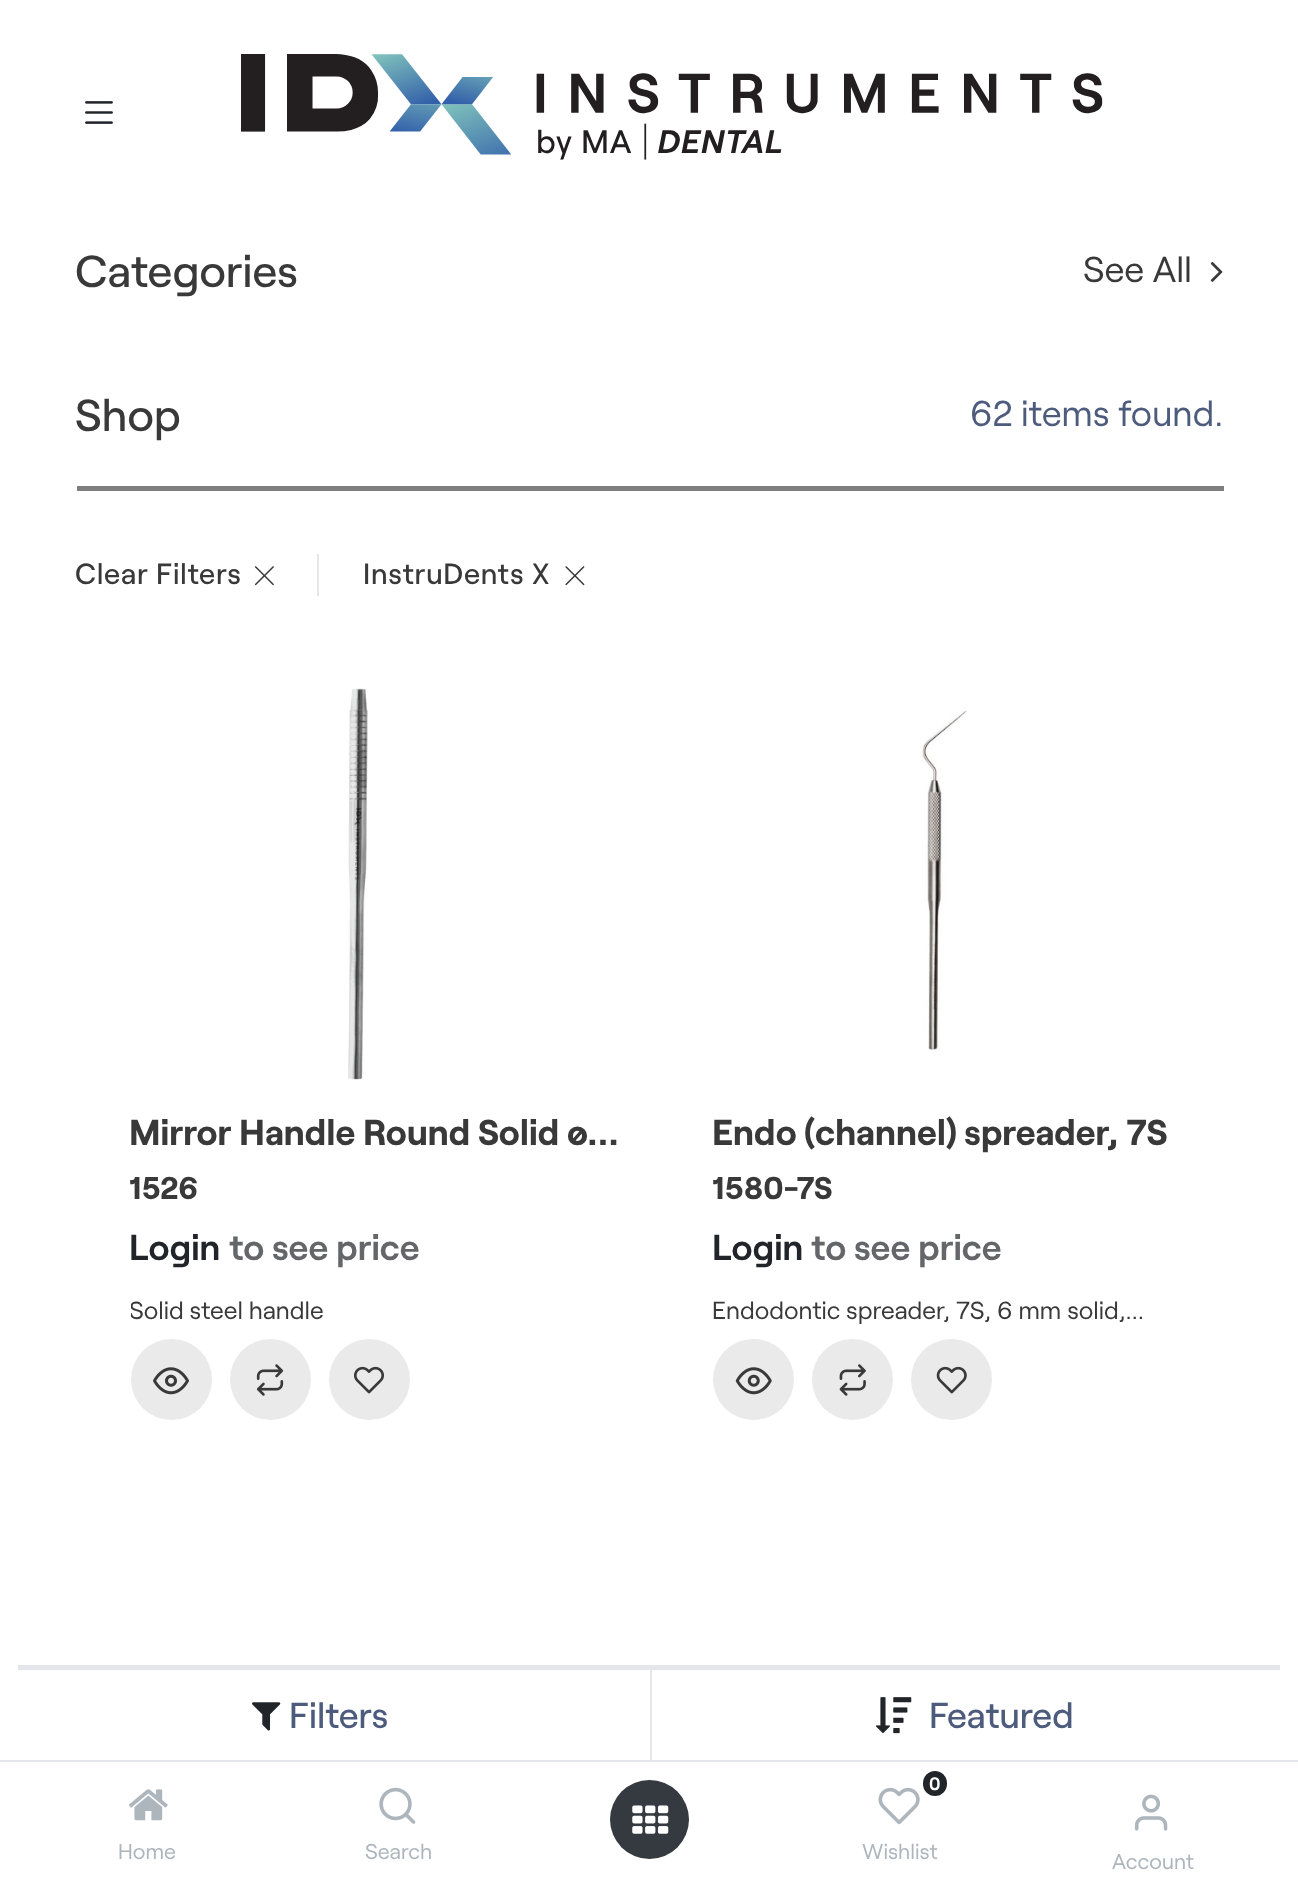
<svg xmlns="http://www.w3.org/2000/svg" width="1298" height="1884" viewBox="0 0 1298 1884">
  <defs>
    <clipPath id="clip1"><rect x="131" y="1292" width="492" height="38"/></clipPath>
  </defs>
  <rect width="100%" height="100%" fill="#ffffff"/>
  <image x="85" y="101" width="28" height="23" href="img1.png"/>
  <image x="241" y="54" width="862" height="106" href="img2.png"/>
  <text x="75" y="287" font-family="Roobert" font-size="45" font-weight="500" fill="#393939">Categories</text>
  <text x="1083" y="282" font-family="Roobert" font-size="36" fill="#393939">See All</text>
  <image x="1210" y="262" width="13" height="20" href="img3.png"/>
  <text x="75" y="431" font-family="Roobert" font-size="45" font-weight="500" fill="#393939">Shop</text>
  <text x="970" y="426" font-family="Roobert" font-size="36" fill="#4d5b7c">62 items found.</text>
  <rect x="77" y="486" width="1147" height="5" fill="#7e7e7e"/>
  <rect x="317" y="554" width="2" height="42" fill="#e4e6eb"/>
  <text x="75" y="584" font-family="Roobert" font-size="29.25" font-weight="500" letter-spacing="0.7" fill="#393939">Clear Filters</text>
  <image x="254" y="566" width="20" height="20" href="img4.png"/>
  <text x="363" y="584" font-family="Roobert" font-size="29.25" font-weight="500" letter-spacing="0.7" fill="#393939">InstruDents X</text>
  <image x="565" y="566" width="20" height="20" href="img5.png"/>
  <image x="348" y="688" width="20" height="392" href="img6.png"/>
  <text x="129" y="1145" font-family="Roobert" font-size="36" font-weight="bold" fill="#393939">Mirror Handle Round Solid ø…</text>
  <text x="129" y="1199" font-family="Roobert" font-size="31.5" font-weight="bold" fill="#393939">1526</text>
  <text x="129" y="1260" font-family="Roobert" font-size="36" font-weight="600" fill="#212529">Login</text>
  <text x="229" y="1260" font-family="Roobert" font-size="36" font-weight="600" fill="#646669">to see price</text>
  <g clip-path="url(#clip1)">
    <text x="129" y="1319" font-family="Roobert" font-size="24.75" fill="#393939">Solid steel handle</text>
  </g>
  <circle cx="171.5" cy="1379.5" r="40.5" fill="#eaeaea"/>
  <image x="153" y="1367" width="36" height="28" href="img7.png"/>
  <circle cx="270.5" cy="1379.5" r="40.5" fill="#eaeaea"/>
  <image x="256" y="1364" width="28" height="32" href="img8.png"/>
  <circle cx="369.5" cy="1379.5" r="40.5" fill="#eaeaea"/>
  <image x="354" y="1366" width="30" height="28" href="img9.png"/>
  <image x="921" y="710" width="46" height="340" href="img10.png"/>
  <text x="712" y="1145" font-family="Roobert" font-size="36" font-weight="bold" fill="#393939">Endo (channel) spreader, 7S</text>
  <text x="712" y="1199" font-family="Roobert" font-size="31.5" font-weight="bold" fill="#393939">1580-7S</text>
  <text x="712" y="1260" font-family="Roobert" font-size="36" font-weight="600" fill="#212529">Login</text>
  <text x="811" y="1260" font-family="Roobert" font-size="36" font-weight="600" fill="#646669">to see price</text>
  <text x="712" y="1319" font-family="Roobert" font-size="24.75" fill="#393939">Endodontic spreader, 7S, 6 mm solid,…</text>
  <circle cx="753.5" cy="1379.5" r="40.5" fill="#eaeaea"/>
  <image x="735" y="1367" width="37" height="28" href="img11.png"/>
  <circle cx="852.5" cy="1379.5" r="40.5" fill="#eaeaea"/>
  <image x="839" y="1364" width="27" height="32" href="img12.png"/>
  <circle cx="951.5" cy="1379.5" r="40.5" fill="#eaeaea"/>
  <image x="936" y="1366" width="31" height="28" href="img13.png"/>
  <rect x="18" y="1665" width="1262" height="5" fill="#e4e6eb"/>
  <rect x="0" y="1760" width="1298" height="2" fill="#e4e6eb"/>
  <image x="252" y="1702" width="29" height="29" href="img14.png"/>
  <text x="289" y="1728" font-family="Roobert" font-size="36" font-weight="500" fill="#4d5b7c">Filters</text>
  <rect x="650" y="1670" width="2" height="90" fill="#e4e6eb"/>
  <image x="875" y="1697" width="37" height="37" href="img15.png"/>
  <text x="929" y="1728" font-family="Roobert" font-size="36" font-weight="500" fill="#4d5b7c">Featured</text>
  <image x="129" y="1789" width="39" height="32" href="img16.png"/>
  <text x="118" y="1859" font-family="Roobert" font-size="21.5" fill="#adb5bd">Home</text>
  <image x="379" y="1787" width="37" height="37" href="img17.png"/>
  <text x="365" y="1859" font-family="Roobert" font-size="21.5" fill="#adb5bd">Search</text>
  <circle cx="649.5" cy="1819.5" r="39.5" fill="#343a40"/>
  <image x="632" y="1805" width="37" height="29" href="img18.png"/>
  <rect x="923" y="1771" width="24" height="25" rx="12" fill="#212529"/>
  <text x="929" y="1790" font-family="Roobert" font-size="18" font-weight="600" fill="#ffffff">0</text>
  <image x="878" y="1787" width="42" height="38" href="img19.png"/>
  <text x="862" y="1859" font-family="Roobert" font-size="21.5" fill="#adb5bd">Wishlist</text>
  <image x="1134" y="1794" width="34" height="37" href="img20.png"/>
  <text x="1112" y="1869" font-family="Roobert" font-size="21.5" fill="#adb5bd">Account</text>
</svg>
